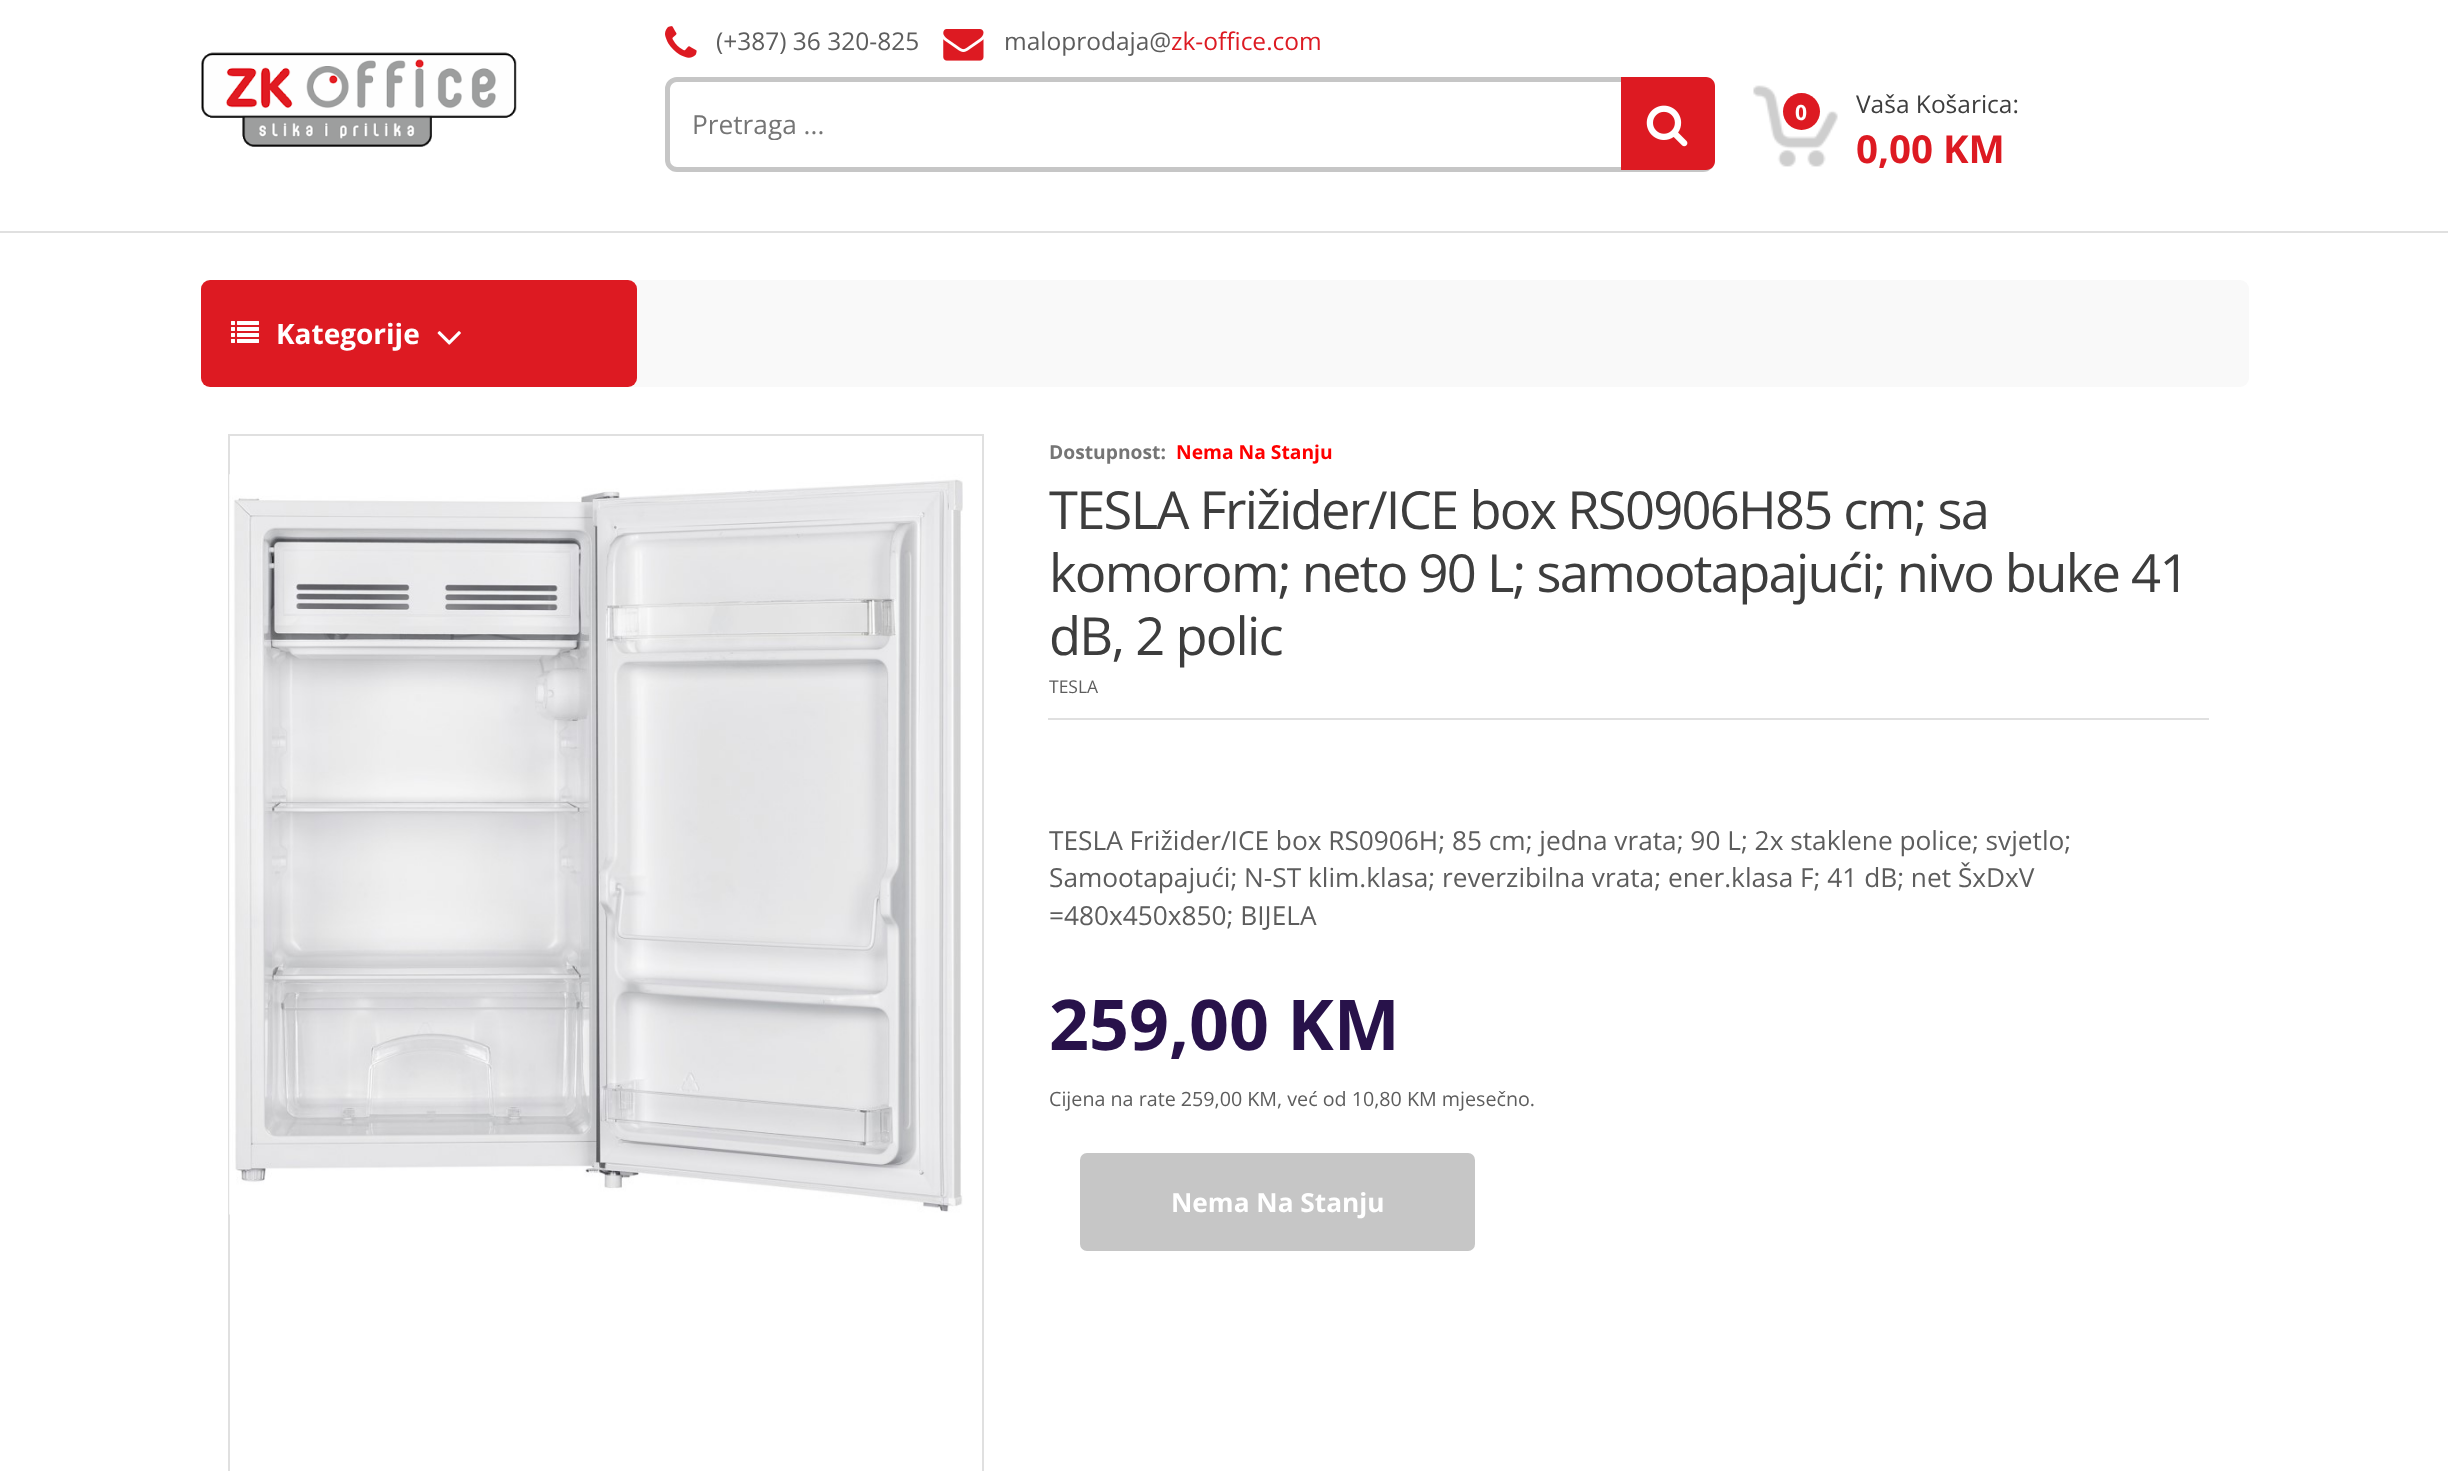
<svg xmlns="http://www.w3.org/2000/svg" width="2448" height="1471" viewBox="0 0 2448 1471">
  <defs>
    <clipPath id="clip1"><rect x="693" y="105" width="630" height="35"/></clipPath>
  </defs>
  <rect width="100%" height="100%" fill="#ffffff"/>
  <rect x="0" y="231" width="2448" height="2" fill="#e0e0e0"/>
  <image x="201" y="52" width="316" height="95" href="img1.png"/>
  <image x="665" y="26" width="32" height="32" href="img2.png"/>
  <text x="716" y="50" font-family="Open Sans" font-size="24.5" fill="#5d5d5d">(+387) 36 320-825</text>
  <image x="943" y="29" width="41" height="32" href="img3.png"/>
  <text x="1004" y="50" font-family="Open Sans" font-size="24.5" fill="#5d5d5d">maloprodaja@</text>
  <text x="1171" y="50" font-family="Open Sans" font-size="24.5" fill="#dd1a22">zk-office.com</text>
  <rect x="667.5" y="79.5" width="1045" height="90" rx="9.5" fill="none" stroke="#c6c6c6" stroke-width="5"/>
  <path d="M679 82H1346V166H679C674 166 670 162 670 157V91C670 86 674 82 679 82Z" fill="#ffffff"/>
  <g clip-path="url(#clip1)">
    <text x="692" y="134" font-family="Open Sans" font-size="26.25" fill="#757575">Pretraga ...</text>
  </g>
  <path d="M1621 77H1706C1711 77 1715 81 1715 86V161C1715 166 1711 170 1706 170H1621Z" fill="#dd1a22"/>
  <image x="1646" y="105" width="42" height="42" href="img4.png"/>
  <image x="1753" y="85" width="85" height="82" href="img5.png"/>
  <circle cx="1801.5" cy="111.5" r="18.5" fill="#dd1a22"/>
  <text x="1795" y="120" font-family="Open Sans" font-size="21" font-weight="bold" fill="#ffffff">0</text>
  <text x="1856" y="113" font-family="Open Sans" font-size="24.5" fill="#3d3d3d">Vaša Košarica:</text>
  <text x="1856" y="163" font-family="Open Sans" font-size="38.5" font-weight="bold" fill="#dd1a22">0,00 KM</text>
  <rect x="201" y="280" width="2048" height="107" rx="9" fill="#f9f9f9"/>
  <rect x="201" y="280" width="436" height="107" rx="9" fill="#dd1a22"/>
  <image x="231" y="321" width="28" height="22" href="img6.png"/>
  <text x="276" y="344" font-family="Open Sans" font-size="28" font-weight="bold" fill="#ffffff">Kategorije</text>
  <image x="437" y="331" width="24" height="14" href="img7.png"/>
  <rect x="229" y="435" width="754" height="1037" fill="none" stroke="#e0e0e0" stroke-width="2"/>
  <image x="229" y="474" width="734" height="741" href="img8.png"/>
  <text x="1049" y="459" font-family="Open Sans" font-size="19.25" font-weight="bold" fill="#757575">Dostupnost:</text>
  <text x="1176" y="459" font-family="Open Sans" font-size="19.25" font-weight="bold" fill="#ff0000">Nema Na Stanju</text>
  <text x="1049" y="529" font-family="Open Sans" font-size="52.5" letter-spacing="-1.75" fill="#3d3d3d">TESLA Frižider/ICE box RS0906H85 cm; sa</text>
  <text x="1049" y="592" font-family="Open Sans" font-size="52.5" letter-spacing="-1.75" fill="#3d3d3d">komorom; neto 90 L; samootapajući; nivo buke 41</text>
  <text x="1049" y="655" font-family="Open Sans" font-size="52.5" letter-spacing="-1.75" fill="#3d3d3d">dB, 2 polic</text>
  <rect x="1048" y="718" width="1161" height="2" fill="#e0e0e0"/>
  <text x="1049" y="693" font-family="Open Sans" font-size="17.5" fill="#5d5d5d">TESLA</text>
  <text x="1049" y="850" font-family="Open Sans" font-size="26.25" fill="#5d5d5d">TESLA Frižider/ICE box RS0906H; 85 cm; jedna vrata; 90 L; 2x staklene police; svjetlo;</text>
  <text x="1049" y="887" font-family="Open Sans" font-size="26.25" fill="#5d5d5d">Samootapajući; N-ST klim.klasa; reverzibilna vrata; ener.klasa F; 41 dB; net ŠxDxV</text>
  <text x="1049" y="925" font-family="Open Sans" font-size="26.25" fill="#5d5d5d">=480x450x850; BIJELA</text>
  <text x="1049" y="1050" font-family="Open Sans" font-size="70" font-weight="bold" fill="#28124a">259,00 KM</text>
  <text x="1049" y="1106" font-family="Open Sans" font-size="19.7" fill="#5d5d5d">Cijena na rate 259,00 KM, već od 10,80 KM mjesečno.</text>
  <rect x="1080" y="1153" width="395" height="98" rx="7" fill="#c6c6c6"/>
  <text x="1171" y="1212" font-family="Open Sans" font-size="26.25" font-weight="bold" fill="#ffffff">Nema Na Stanju</text>
</svg>
